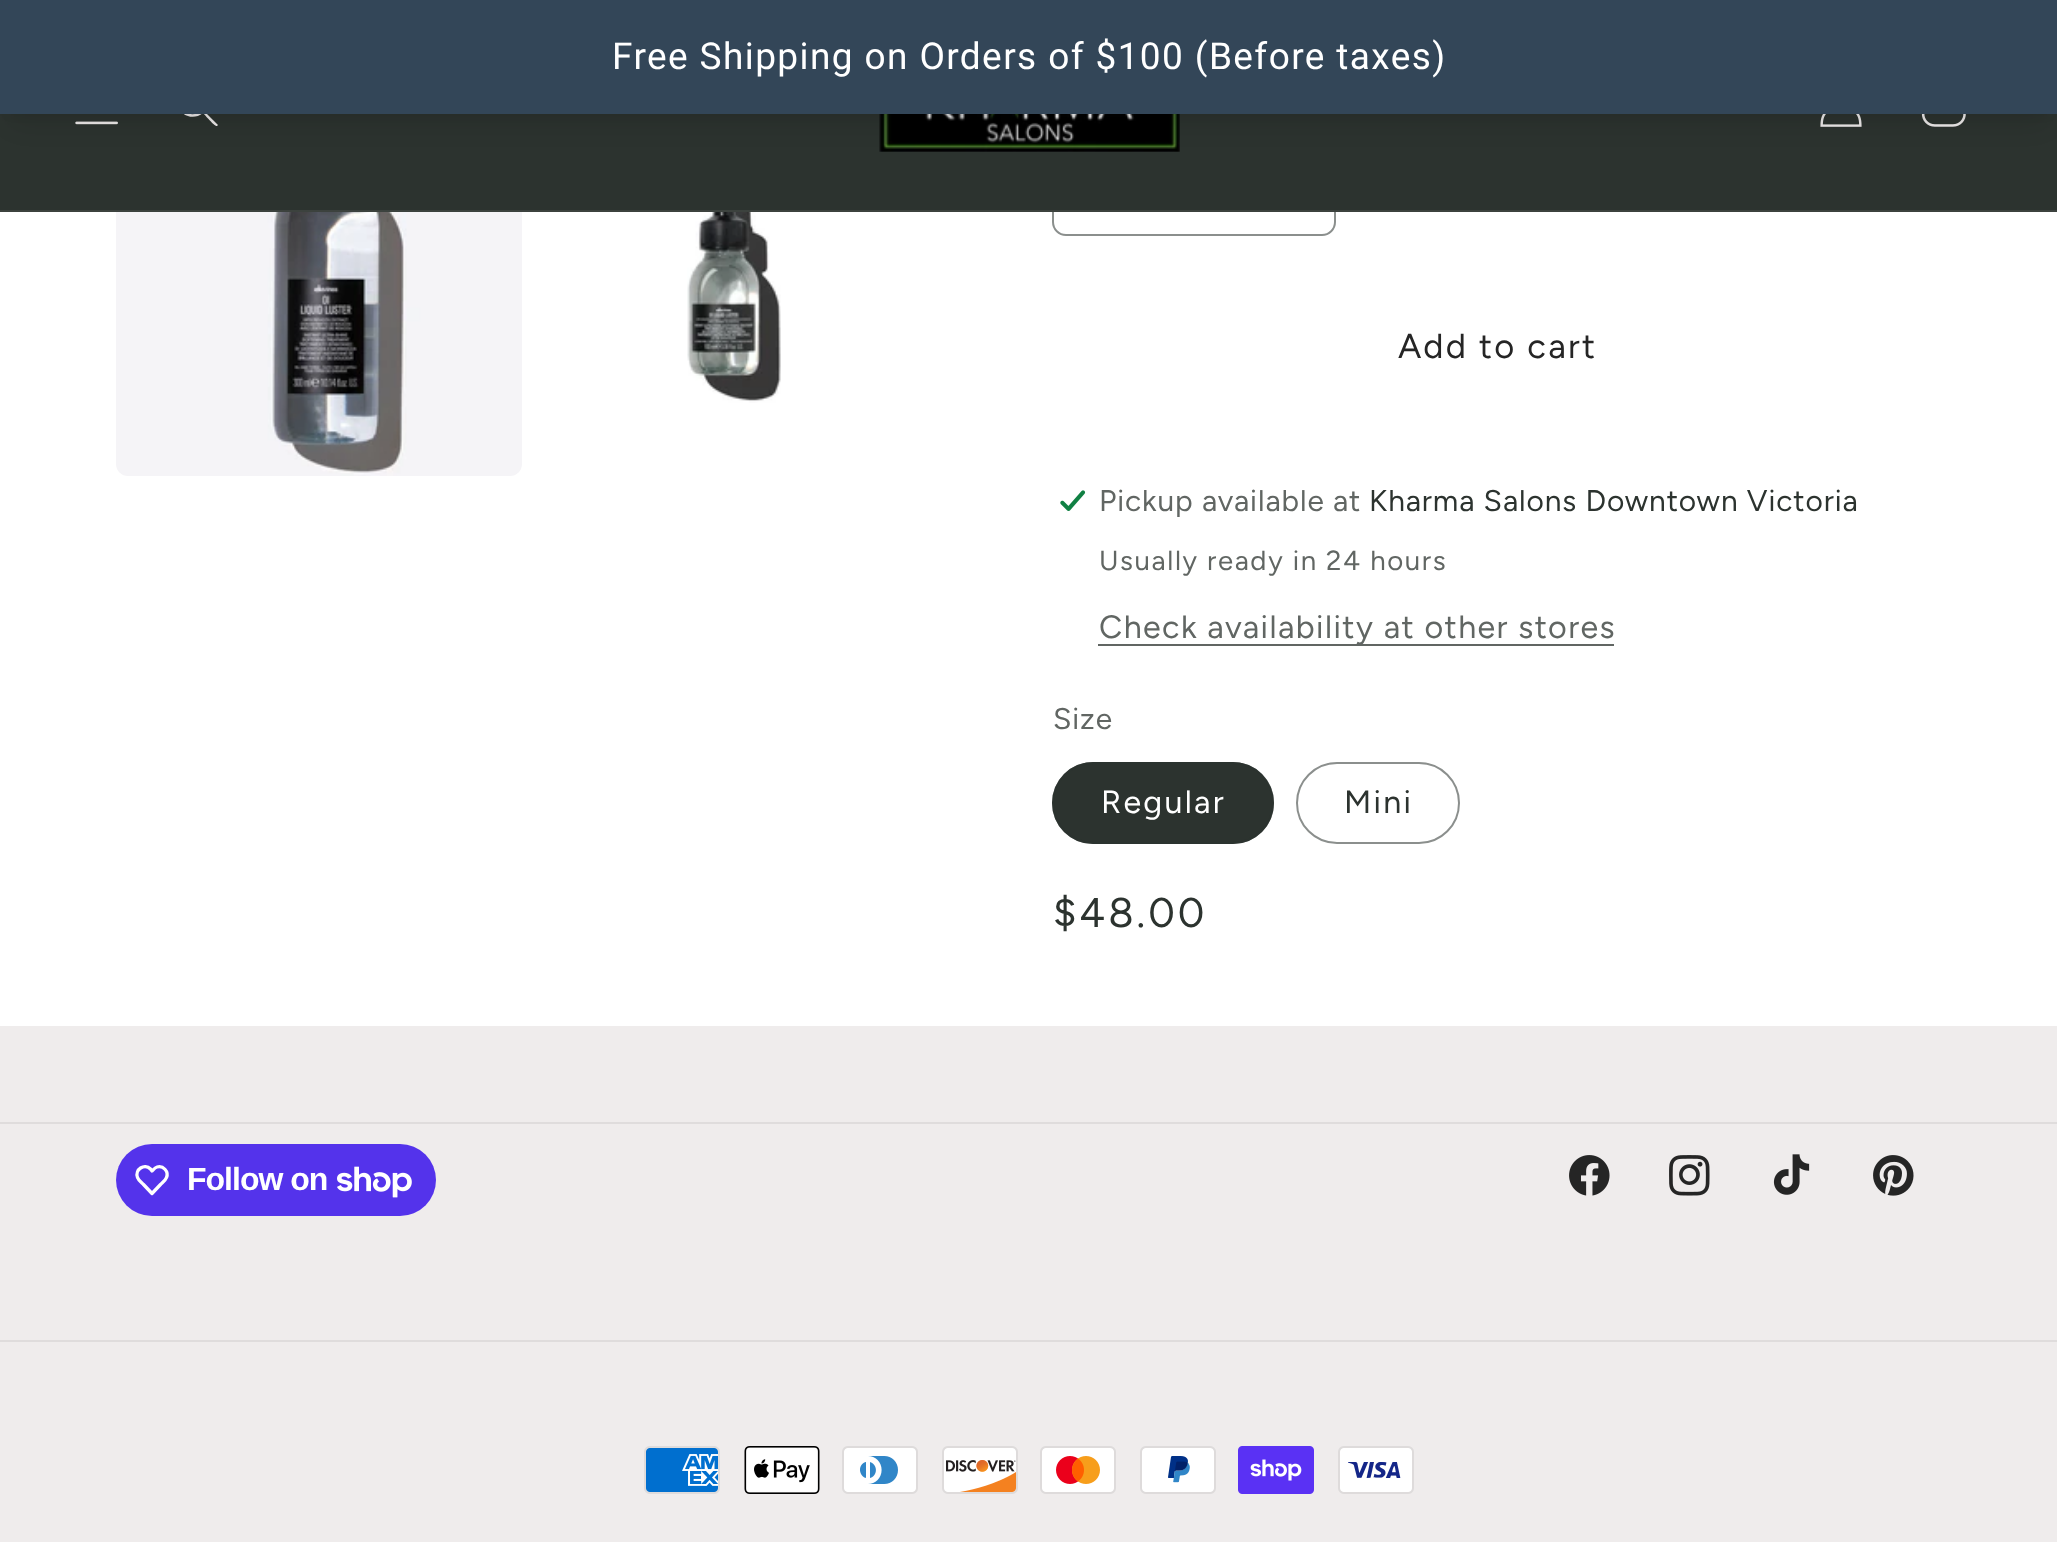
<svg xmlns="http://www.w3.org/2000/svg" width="2057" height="1542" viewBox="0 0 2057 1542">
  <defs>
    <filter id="blur1" x="-50%" y="-200%" width="200%" height="500%"><feGaussianBlur stdDeviation="6"/></filter>
    <filter id="blur2" x="-50%" y="-200%" width="200%" height="500%"><feGaussianBlur stdDeviation="15"/></filter>
  </defs>
  <rect width="100%" height="100%" fill="#efecec"/>
  <rect x="0" y="212" width="2057" height="814" fill="#ffffff"/>
  <rect x="1053" y="129" width="282" height="106" rx="13" fill="none" stroke="#8b8f8d" stroke-width="2"/>
  <rect x="0" y="114" width="2057" height="96" fill="#2c332f"/>
  <path d="M202 110C189 123 169 103 182 90C195 77 215 97 202 110ZM203 113C187 126 166 103 181 89C195 74 218 96 204 111L218 125L217 126C215 127 205 115 203 113Z" fill="#efecec" fill-rule="evenodd"/>
  <image x="75" y="121" width="43" height="4" href="img1.png"/>
  <image x="879" y="114" width="301" height="38" href="img2.png"/>
  <image x="1820" y="114" width="42" height="13" href="img3.png"/>
  <image x="1921" y="114" width="45" height="13" href="img4.png"/>
  <rect x="4" y="12" width="2050" height="106" fill="#000000" fill-opacity="0.05" filter="url(#blur1)"/>
  <rect x="6" y="26" width="2046" height="102" fill="#000000" fill-opacity="0.1" filter="url(#blur2)"/>
  <rect x="0" y="0" width="2057" height="114" fill="#334658"/>
  <text x="612" y="69" font-family="Roboto" font-size="37" letter-spacing="1.4" fill="#ffffff">Free Shipping on Orders of $100 (Before taxes)</text>
  <rect x="0" y="210" width="2057" height="2" fill="#3c423e"/>
  <image x="116" y="212" width="406" height="264" href="img5.png"/>
  <image x="687" y="212" width="94" height="191" href="img6.png"/>
  <text x="1398" y="358" font-family="Figtree" font-size="34.5" letter-spacing="2.25" fill="#252525">Add to cart</text>
  <image x="1060" y="490" width="26" height="21" href="img7.png"/>
  <text x="1099" y="511" font-family="Figtree" font-size="29.9" letter-spacing="0.9" fill="#616663">Pickup available at</text>
  <text x="1369" y="511" font-family="Figtree" font-size="29.9" letter-spacing="0.9" fill="#2c332f">Kharma Salons Downtown Victoria</text>
  <text x="1099" y="570" font-family="Figtree" font-size="27.6" letter-spacing="1.6" fill="#616663">Usually ready in 24 hours</text>
  <rect x="1098" y="644" width="516" height="2" fill="#616663"/>
  <text x="1099" y="638" font-family="Figtree" font-size="32.25" letter-spacing="1.4" fill="#616663">Check availability at other stores</text>
  <text x="1053" y="729" font-family="Figtree" font-size="29.9" letter-spacing="0.9" fill="#616663">Size</text>
  <rect x="1052" y="762" width="222" height="82" rx="41" fill="#2c332f"/>
  <rect x="1053" y="763" width="220" height="80" rx="40" fill="none" stroke="#2c332f" stroke-opacity="0.55" stroke-width="2"/>
  <text x="1101" y="813" font-family="Figtree" font-size="32.25" letter-spacing="2.25" fill="#ffffff">Regular</text>
  <rect x="1297" y="763" width="162" height="80" rx="40" fill="none" stroke="#8b8f8d" stroke-width="2"/>
  <text x="1344" y="813" font-family="Figtree" font-size="32.25" letter-spacing="2.25" fill="#2c332f">Mini</text>
  <text x="1053" y="927" font-family="Figtree" font-size="41.5" letter-spacing="3" fill="#2c332f">$48.00</text>
  <rect x="0" y="1122" width="2057" height="2" fill="#dfdcdc"/>
  <rect x="116" y="1144" width="320" height="72" rx="36" fill="#5433eb"/>
  <path d="M150.5 1169L152 1171C153.5 1169.5 155 1167.5 157 1167C163 1165 169 1171.5 166.5 1177.5C165.5 1180.5 162.5 1182.5 160.5 1184.5L152 1193.5L143.5 1184.5C141.5 1182.5 138.5 1180.5 137.5 1177.5C134.5 1169.5 144.5 1163 150.5 1169Z" fill="none" stroke="#ffffff" stroke-width="3.3" stroke-linejoin="round"/>
  <text x="187" y="1190" font-family="Liberation Sans" font-size="32" font-weight="bold" letter-spacing="-1" fill="#ffffff">Follow on</text>
  <image x="337" y="1166" width="75" height="32" href="img8.png"/>
  <image x="1569" y="1155" width="41" height="41" href="img9.png"/>
  <image x="1669" y="1155" width="41" height="41" href="img10.png"/>
  <image x="1773" y="1154" width="37" height="41" href="img11.png"/>
  <image x="1873" y="1155" width="41" height="41" href="img12.png"/>
  <rect x="0" y="1340" width="2057" height="2" fill="#dfdcdc"/>
  <image x="644" y="1446" width="76" height="48" href="img13.png"/>
  <image x="744" y="1446" width="76" height="48" href="img14.png"/>
  <image x="842" y="1446" width="76" height="48" href="img15.png"/>
  <image x="942" y="1446" width="76" height="48" href="img16.png"/>
  <image x="1040" y="1446" width="76" height="48" href="img17.png"/>
  <image x="1140" y="1446" width="76" height="48" href="img18.png"/>
  <image x="1238" y="1446" width="76" height="48" href="img19.png"/>
  <image x="1338" y="1446" width="76" height="48" href="img20.png"/>
</svg>
